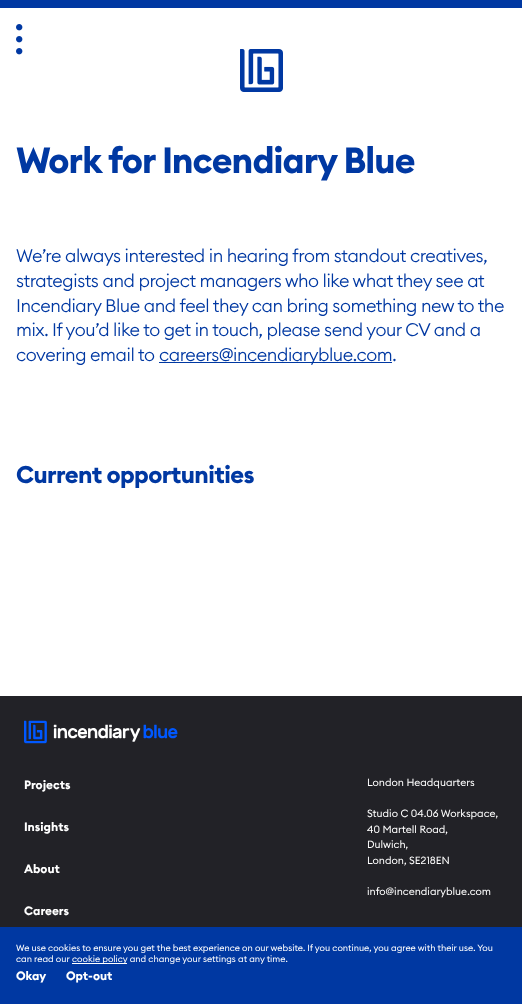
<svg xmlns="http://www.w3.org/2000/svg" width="522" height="1004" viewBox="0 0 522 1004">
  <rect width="100%" height="100%" fill="#ffffff"/>
  <rect x="0" y="0" width="522" height="8" fill="#0038a2"/>
  <image x="16" y="24" width="7" height="31" href="img1.png"/>
  <image x="240" y="49" width="43" height="43" href="img2.png"/>
  <text x="16" y="173" font-family="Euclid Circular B" font-size="36" font-weight="bold" letter-spacing="-0.9" fill="#0038a2">Work for Incendiary Blue</text>
  <text x="16" y="262" font-family="Euclid Circular B" font-size="18" font-weight="300" letter-spacing="-0.45" fill="#0038a2">We’re always interested in hearing from standout creatives,</text>
  <text x="16" y="287" font-family="Euclid Circular B" font-size="18" font-weight="300" letter-spacing="-0.45" fill="#0038a2">strategists and project managers who like what they see at</text>
  <text x="16" y="312" font-family="Euclid Circular B" font-size="18" font-weight="300" letter-spacing="-0.45" fill="#0038a2">Incendiary Blue and feel they can bring something new to the</text>
  <text x="16" y="336" font-family="Euclid Circular B" font-size="18" font-weight="300" letter-spacing="-0.45" fill="#0038a2">mix. If you’d like to get in touch, please send your CV and a</text>
  <text x="16" y="361" font-family="Euclid Circular B" font-size="18" font-weight="300" letter-spacing="-0.45" fill="#0038a2">covering email to</text>
  <rect x="159" y="362" width="233" height="1" fill="#0038a2"/>
  <text x="159" y="361" font-family="Euclid Circular B" font-size="18" font-weight="300" letter-spacing="-0.45" fill="#0038a2">careers@incendiaryblue.com.</text>
  <text x="16" y="483" font-family="Euclid Circular B" font-size="24" font-weight="bold" letter-spacing="-0.6" fill="#0038a2">Current opportunities</text>
  <rect x="0" y="696" width="522" height="231" fill="#222227"/>
  <image x="24" y="720" width="154" height="24" href="img3.png"/>
  <text x="24" y="789" font-family="Euclid Circular B" font-size="12" font-weight="bold" fill="#ffffff">Projects</text>
  <text x="24" y="831" font-family="Euclid Circular B" font-size="12" font-weight="bold" fill="#ffffff">Insights</text>
  <text x="24" y="873" font-family="Euclid Circular B" font-size="12" font-weight="bold" fill="#ffffff">About</text>
  <text x="24" y="915" font-family="Euclid Circular B" font-size="12" font-weight="bold" fill="#ffffff">Careers</text>
  <text x="367" y="786" font-family="Euclid Circular B" font-size="10.4" fill="#ffffff">London Headquarters</text>
  <text x="367" y="817" font-family="Euclid Circular B" font-size="10.4" fill="#ffffff">Studio C 04.06 Workspace,</text>
  <text x="367" y="833" font-family="Euclid Circular B" font-size="10.4" fill="#ffffff">40 Martell Road,</text>
  <text x="367" y="848" font-family="Euclid Circular B" font-size="10.4" fill="#ffffff">Dulwich,</text>
  <text x="367" y="864" font-family="Euclid Circular B" font-size="10.4" fill="#ffffff">London, SE218EN</text>
  <text x="367" y="895" font-family="Euclid Circular B" font-size="10.4" fill="#ffffff">info@incendiaryblue.com</text>
  <rect x="0" y="927" width="522" height="77" fill="#0038a2"/>
  <text x="16" y="951" font-family="Euclid Circular B" font-size="8.95" fill="#ffffff">We use cookies to ensure you get the best experience on our website. If you continue, you agree with their use. You</text>
  <text x="16" y="962" font-family="Euclid Circular B" font-size="8.95" fill="#ffffff">can read our</text>
  <rect x="72" y="963" width="55" height="1" fill="#ffffff"/>
  <text x="72" y="962" font-family="Euclid Circular B" font-size="8.95" fill="#ffffff">cookie policy and change your settings at any time.</text>
  <text x="16" y="980" font-family="Euclid Circular B" font-size="12" font-weight="bold" fill="#ffffff">Okay</text>
  <text x="66" y="980" font-family="Euclid Circular B" font-size="12" font-weight="bold" fill="#ffffff">Opt-out</text>
</svg>
